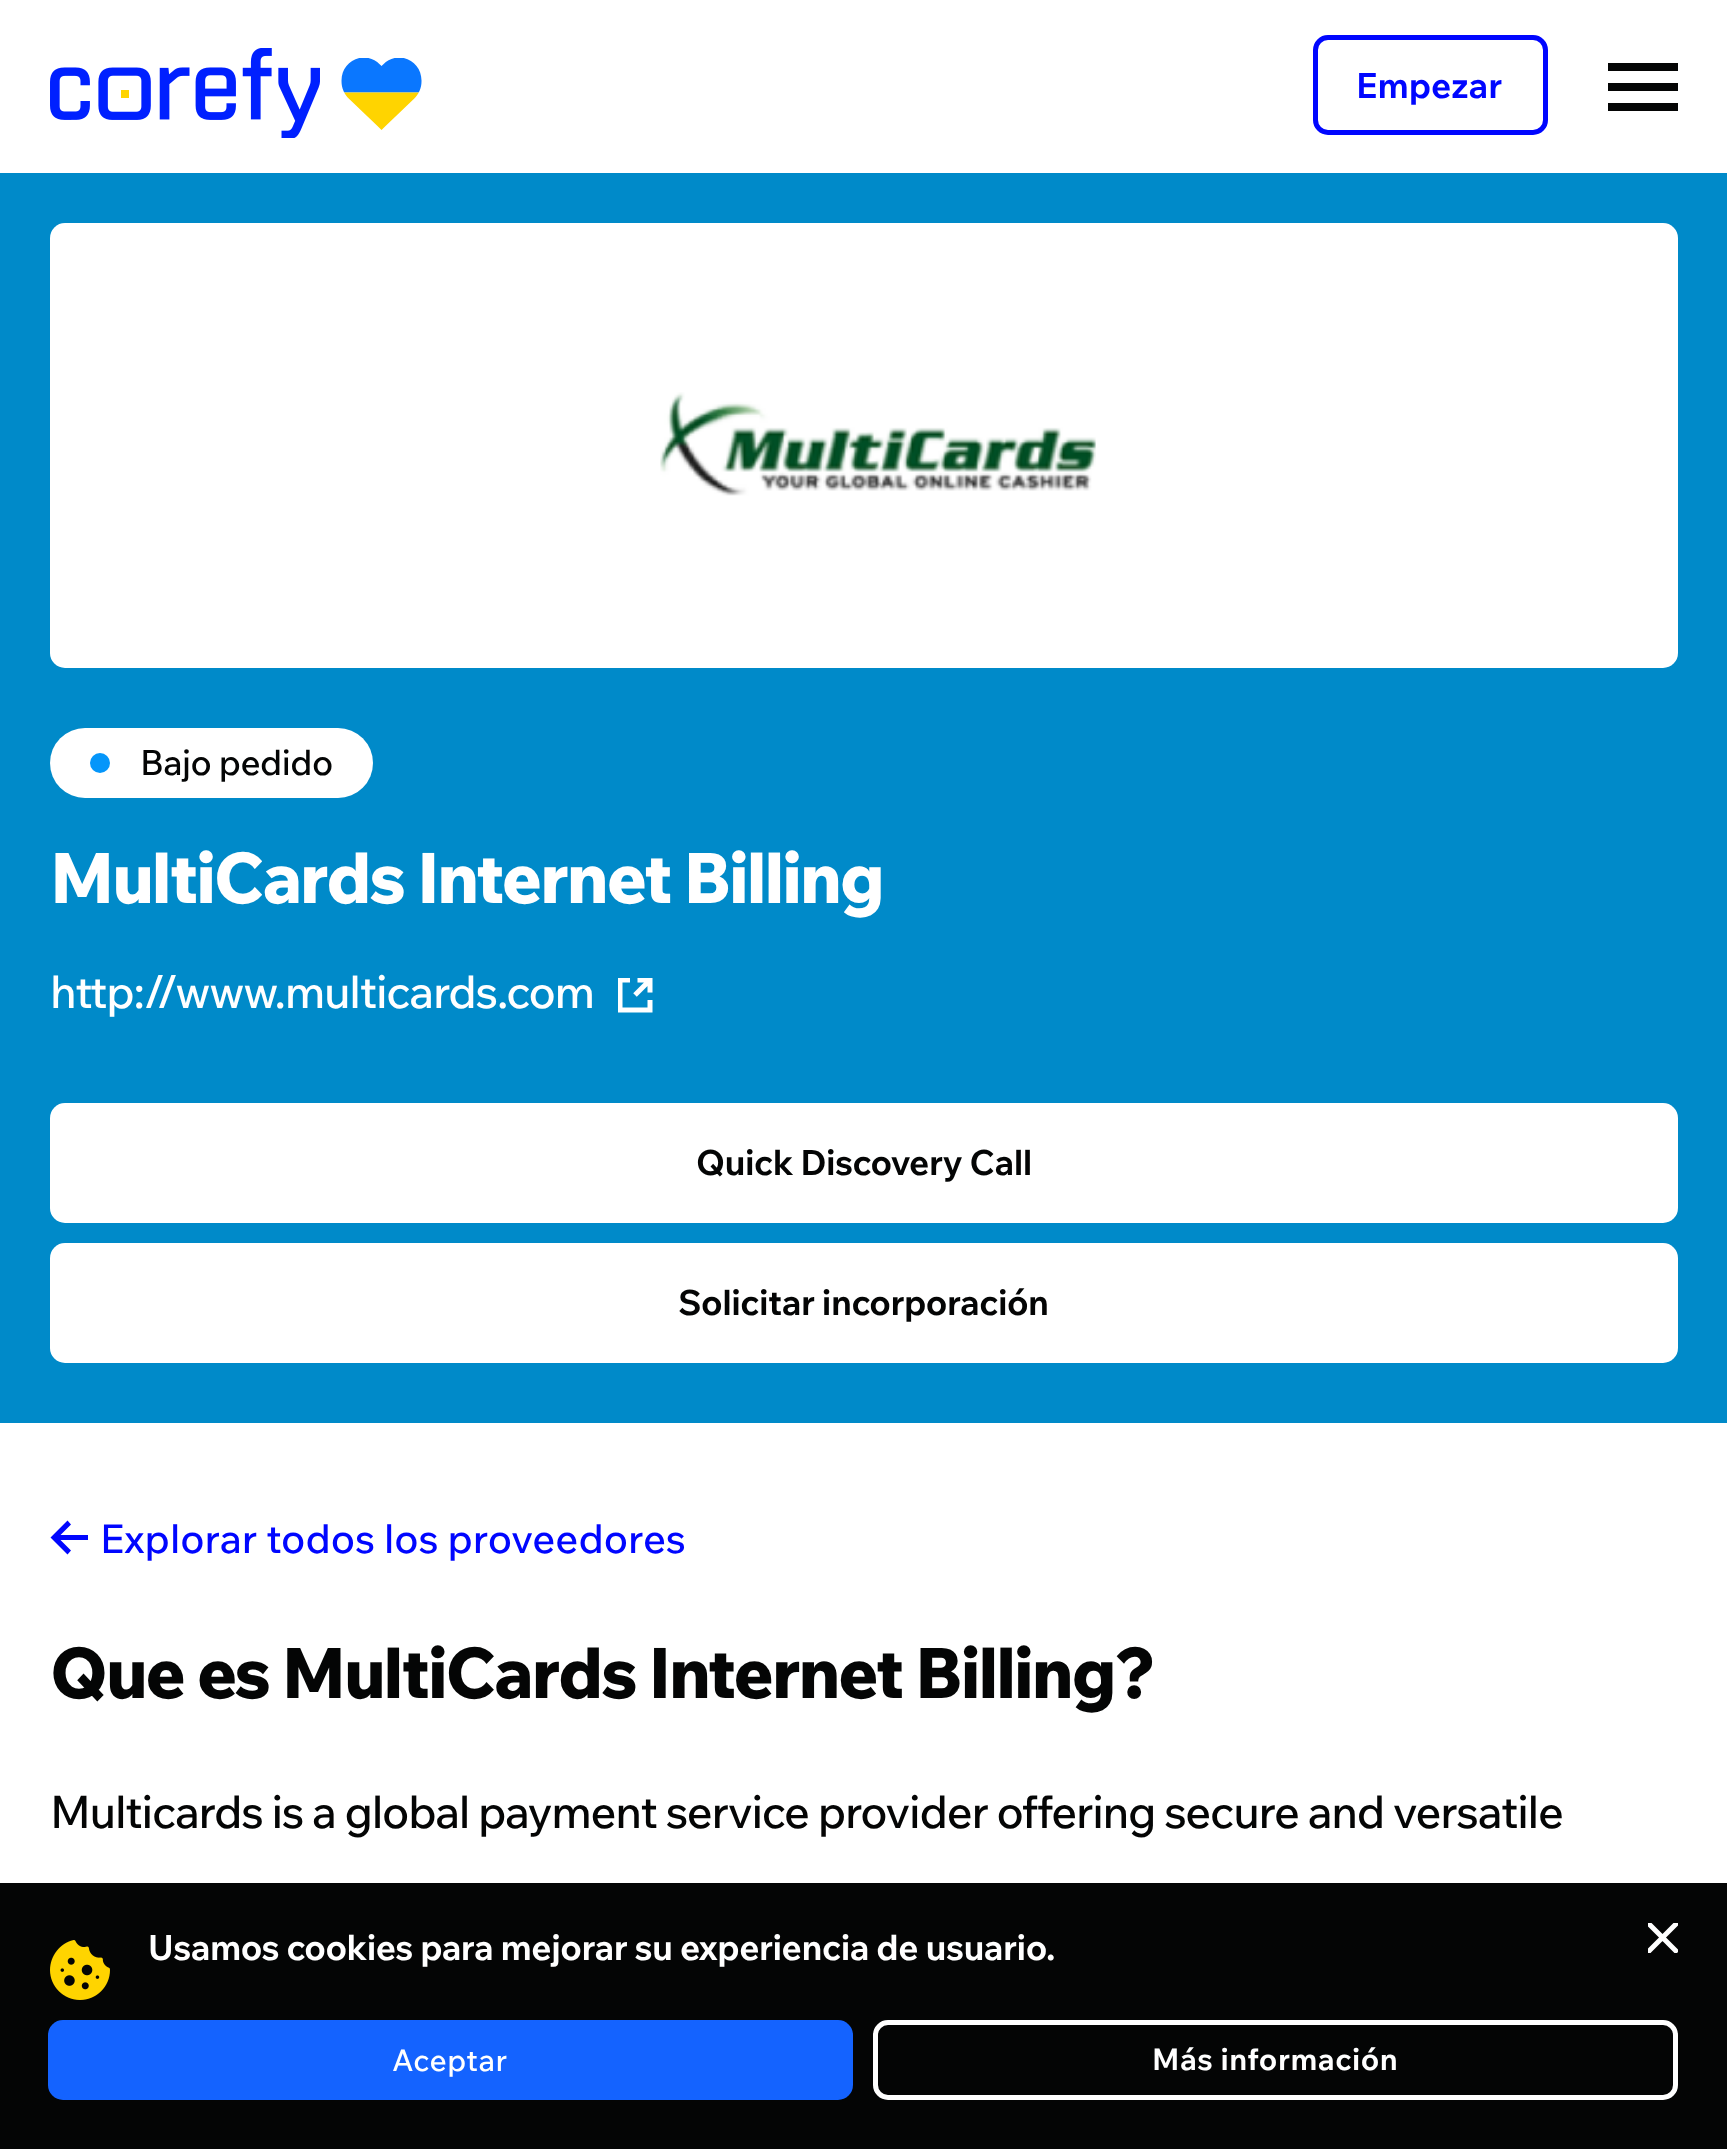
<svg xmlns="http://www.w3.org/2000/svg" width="1727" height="2149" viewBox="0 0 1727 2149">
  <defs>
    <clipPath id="clip1"><rect x="618" y="978" width="35" height="35"/></clipPath>
    <clipPath id="clip2"><rect x="1648" y="1923" width="30" height="30"/></clipPath>
  </defs>
  <rect width="100%" height="100%" fill="#ffffff"/>
  <image x="50" y="48" width="270" height="90" href="img1.png"/>
  <image x="341" y="58" width="81" height="72" href="img2.png"/>
  <rect x="1315.5" y="37.5" width="230" height="95" rx="12.5" fill="none" stroke="#0006ff" stroke-width="5"/>
  <text x="1356" y="98" font-family="Wix Madefor Text" font-size="35" font-weight="bold" fill="#0006ff">Empezar</text>
  <rect x="1608" y="63" width="70" height="8" fill="#040505"/>
  <rect x="1608" y="83" width="70" height="8" fill="#040505"/>
  <rect x="1608" y="103" width="70" height="8" fill="#040505"/>
  <rect x="0" y="173" width="1727" height="1250" fill="#008ac9"/>
  <rect x="50" y="223" width="1628" height="445" rx="15" fill="#ffffff"/>
  <image x="660" y="392" width="436" height="104" href="img3.png"/>
  <rect x="50" y="728" width="323" height="70" rx="35" fill="#ffffff"/>
  <circle cx="100" cy="763" r="10" fill="#0596fa"/>
  <text x="140" y="775" font-family="Wix Madefor Text" font-size="35" font-weight="500" letter-spacing="-0.5" fill="#040505">Bajo pedido</text>
  <text x="50" y="903" font-family="Wix Madefor Text" font-size="70" font-weight="800" letter-spacing="-2.5" fill="#ffffff">MultiCards Internet Billing</text>
  <text x="50" y="1008" font-family="Wix Madefor Text" font-size="45" font-weight="500" letter-spacing="-1.25" fill="#ffffff">http://www.multicards.com</text>
  <g clip-path="url(#clip1)">
    <path d="M617.5 977.5H630V982.5H622.5V1007.5H647.5V1000H652.5V1012.5H617.5Z" fill="#ffffff" fill-rule="evenodd"/>
  </g>
  <image x="633" y="978" width="20" height="19" href="img4.png"/>
  <rect x="50" y="1103" width="1628" height="120" rx="15" fill="#ffffff"/>
  <text x="696" y="1175" font-family="Wix Madefor Text" font-size="35" font-weight="bold" letter-spacing="-0.5" fill="#040505">Quick Discovery Call</text>
  <rect x="50" y="1243" width="1628" height="120" rx="15" fill="#ffffff"/>
  <text x="678" y="1315" font-family="Wix Madefor Text" font-size="35" font-weight="bold" letter-spacing="-0.5" fill="#040505">Solicitar incorporación</text>
  <rect x="60" y="1535" width="28" height="5" fill="#0006ff"/>
  <path d="M67.5 1554.5L50.5 1537.5L67.5 1520.5L71 1524.5L60.5 1535V1540L71 1550.5Z" fill="#0006ff" fill-rule="evenodd"/>
  <text x="100" y="1553" font-family="Wix Madefor Text" font-size="40" font-weight="500" fill="#0006ff">Explorar todos los proveedores</text>
  <text x="50" y="1698" font-family="Wix Madefor Text" font-size="70" font-weight="800" letter-spacing="-2.5" fill="#040505">Que es MultiCards Internet Billing?</text>
  <text x="50" y="1828" font-family="Wix Madefor Text" font-size="45" font-weight="500" letter-spacing="-1.25" fill="#040505">Multicards is a global payment service provider offering secure and versatile</text>
  <rect x="0" y="1883" width="1727" height="266" fill="#040505"/>
  <image x="50" y="1940" width="60" height="60" href="img5.png"/>
  <text x="148" y="1960" font-family="Wix Madefor Text" font-size="35" font-weight="bold" letter-spacing="-0.5" fill="#ffffff">Usamos cookies para mejorar su experiencia de usuario.</text>
  <g clip-path="url(#clip2)">
    <path d="M1647.5 1922.5L1662.5 1937.5M1662.5 1937.5L1647.5 1952.5M1662.5 1937.5L1677.5 1922.5M1662.5 1937.5L1677.5 1952.5" fill="none" stroke="#ffffff" stroke-width="5"/>
  </g>
  <rect x="48" y="2020" width="805" height="80" rx="15" fill="#1463ff"/>
  <text x="392" y="2071" font-family="Wix Madefor Text" font-size="30" font-weight="500" letter-spacing="0.5" fill="#ffffff">Aceptar</text>
  <rect x="875.5" y="2022.5" width="800" height="75" rx="12.5" fill="none" stroke="#ffffff" stroke-width="5"/>
  <text x="1152" y="2070" font-family="Wix Madefor Text" font-size="30" font-weight="bold" letter-spacing="0.5" fill="#ffffff">Más información</text>
</svg>
